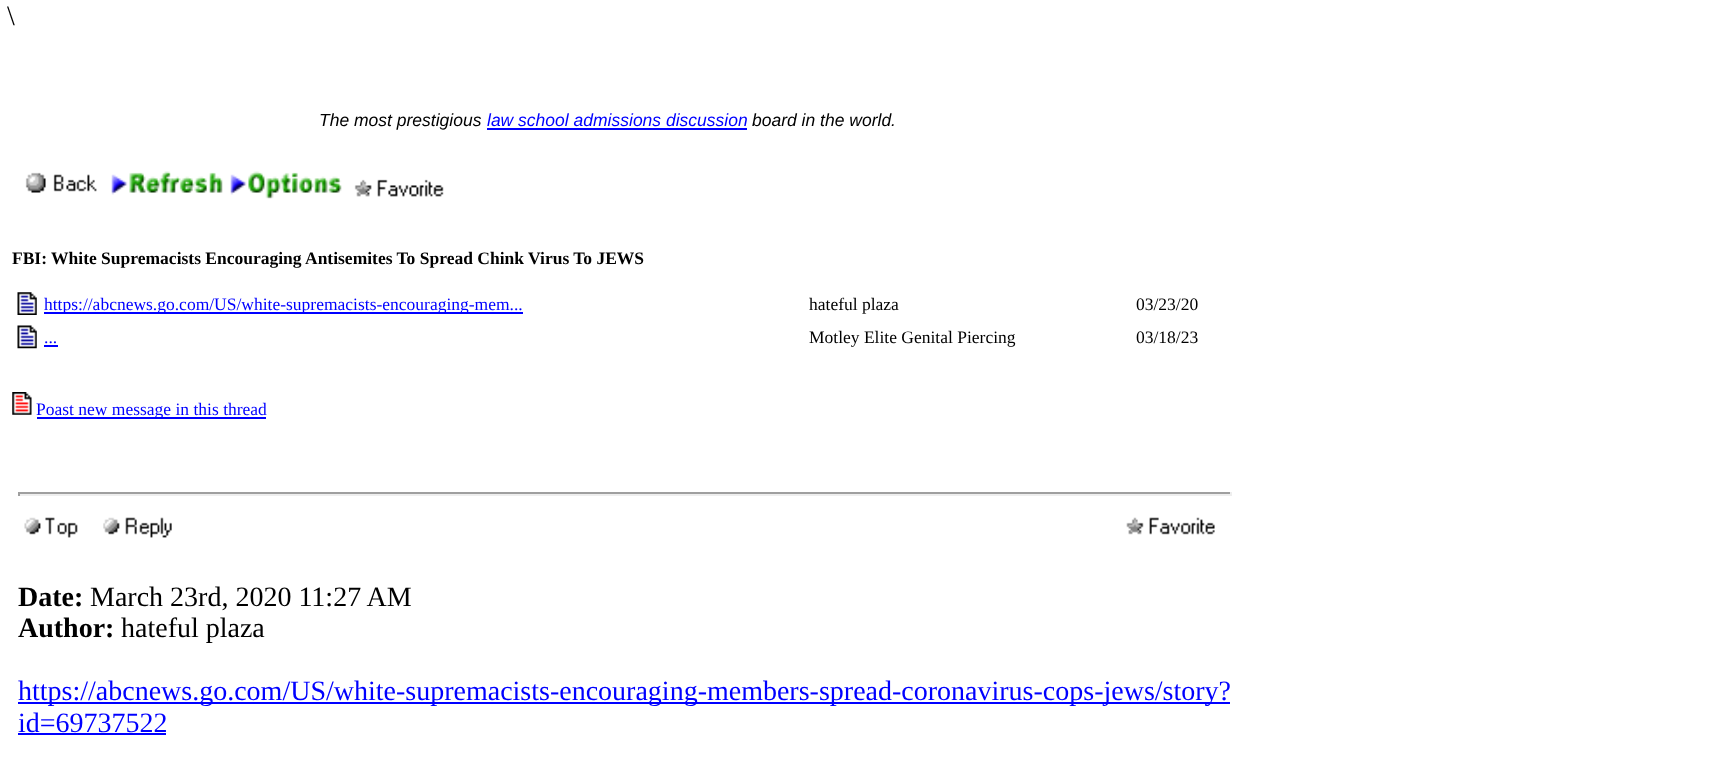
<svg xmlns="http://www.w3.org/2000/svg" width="1725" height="764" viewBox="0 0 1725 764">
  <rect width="100%" height="100%" fill="#ffffff"/>
  <text x="7" y="25" font-family="Liberation Serif" font-size="28" fill="#000000">\</text>
  <text x="319" y="126" font-family="Liberation Sans" font-size="17.5" font-style="italic" fill="#000000">The most prestigious</text>
  <text x="487" y="126" font-family="Liberation Sans" font-size="17.5" font-style="italic" fill="#0000ff">law school admissions discussion</text>
  <rect x="487" y="128" width="260" height="2" fill="#0000ff"/>
  <text x="752" y="126" font-family="Liberation Sans" font-size="17.5" font-style="italic" fill="#000000">board in the world.</text>
  <image x="25" y="172" width="72" height="21" href="img1.png"/>
  <image x="111" y="171" width="112" height="24" href="img2.png"/>
  <image x="230" y="171" width="112" height="28" href="img3.png"/>
  <image x="354" y="179" width="90" height="18" href="img4.png"/>
  <text x="12" y="264" font-family="Liberation Serif" font-size="17.5" font-weight="bold" fill="#000000">FBI: White Supremacists Encouraging Antisemites To Spread Chink Virus To JEWS</text>
  <image x="17" y="292" width="20" height="23" href="img5.png"/>
  <rect x="44" y="312" width="479" height="2" fill="#0000ff"/>
  <text x="44" y="310" font-family="Liberation Serif" font-size="17.5" fill="#0000ff">https://abcnews.go.com/US/white-supremacists-encouraging-mem...</text>
  <text x="809" y="310" font-family="Liberation Serif" font-size="17.5" fill="#000000">hateful plaza</text>
  <text x="1136" y="310" font-family="Liberation Serif" font-size="17.5" fill="#000000">03/23/20</text>
  <image x="17" y="325" width="20" height="24" href="img6.png"/>
  <text x="44" y="343" font-family="Liberation Serif" font-size="17.5" fill="#0000ff">...</text>
  <rect x="44" y="345" width="14" height="2" fill="#0000ff"/>
  <text x="809" y="343" font-family="Liberation Serif" font-size="17.5" fill="#000000">Motley Elite Genital Piercing</text>
  <text x="1136" y="343" font-family="Liberation Serif" font-size="17.5" fill="#000000">03/18/23</text>
  <image x="12" y="392" width="20" height="23" href="img7.png"/>
  <rect x="37" y="417" width="229" height="2" fill="#0000ff"/>
  <text x="36" y="415" font-family="Liberation Serif" font-size="17.5" fill="#0000ff">Poast new message in this thread</text>
  <rect x="18" y="492" width="1214" height="2" fill="#9f9f9f"/>
  <rect x="1230" y="492" width="2" height="4" fill="#eeeeee"/>
  <rect x="18" y="494" width="1214" height="2" fill="#eeeeee"/>
  <rect x="18" y="492" width="2" height="4" fill="#9f9f9f"/>
  <image x="24" y="517" width="54" height="21" href="img8.png"/>
  <image x="103" y="517" width="69" height="21" href="img9.png"/>
  <image x="1126" y="517" width="89" height="18" href="img10.png"/>
  <text x="18" y="606" font-family="Liberation Serif" font-size="28" font-weight="bold" fill="#000000">Date:</text>
  <text x="90" y="606" font-family="Liberation Serif" font-size="28" fill="#000000">March 23rd, 2020 11:27 AM</text>
  <text x="18" y="637" font-family="Liberation Serif" font-size="28" font-weight="bold" fill="#000000">Author:</text>
  <text x="121" y="637" font-family="Liberation Serif" font-size="28" fill="#000000">hateful plaza</text>
  <rect x="18" y="702" width="1212" height="2" fill="#0000ff"/>
  <text x="18" y="700" font-family="Liberation Serif" font-size="28" fill="#0000ff">https://abcnews.go.com/US/white-supremacists-encouraging-members-spread-coronavirus-cops-jews/story?</text>
  <text x="18" y="732" font-family="Liberation Serif" font-size="28" fill="#0000ff">id=69737522</text>
  <rect x="18" y="733" width="148" height="2" fill="#0000ff"/>
</svg>
